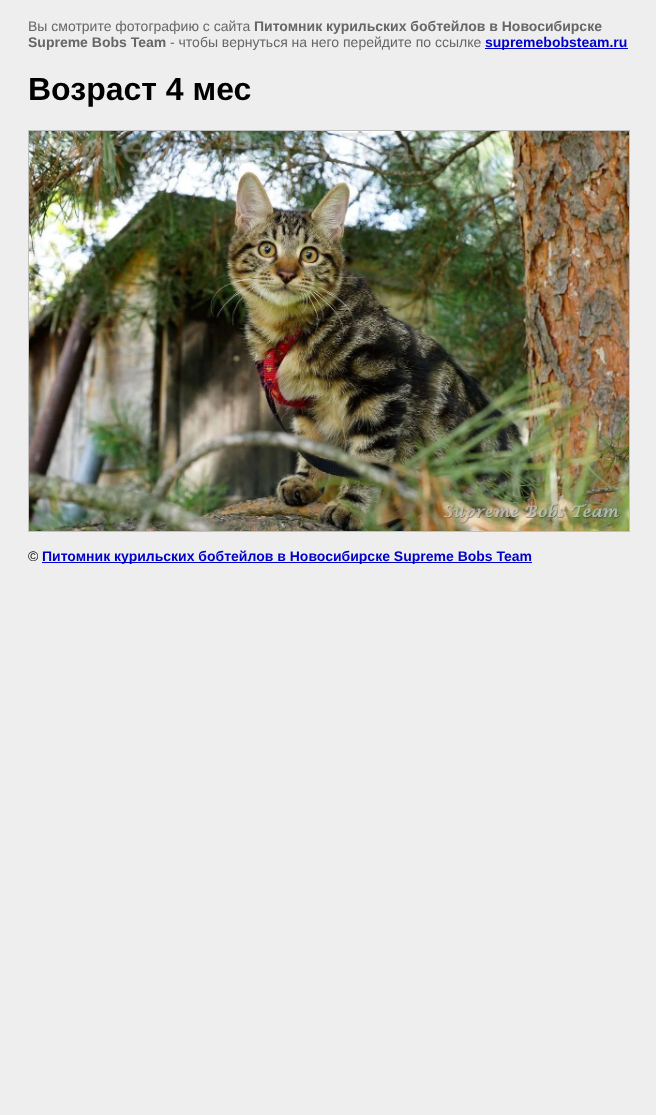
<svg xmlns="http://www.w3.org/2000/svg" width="656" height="1115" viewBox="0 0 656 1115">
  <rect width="100%" height="100%" fill="#eeeeee"/>
  <text x="28" y="31" font-family="Liberation Sans" font-size="14" fill="#666666">Вы смотрите фотографию с сайта</text>
  <text x="254" y="31" font-family="Liberation Sans" font-size="14" font-weight="bold" fill="#666666">Питомник курильских бобтейлов в Новосибирске</text>
  <text x="28" y="47" font-family="Liberation Sans" font-size="14" font-weight="bold" fill="#666666">Supreme Bobs Team</text>
  <text x="170" y="47" font-family="Liberation Sans" font-size="14" fill="#666666">- чтобы вернуться на него перейдите по ссылке</text>
  <rect x="485" y="48" width="143" height="1" fill="#0000cc"/>
  <text x="485" y="47" font-family="Liberation Sans" font-size="14" font-weight="bold" fill="#0000cc">supremebobsteam.ru</text>
  <text x="28" y="100" font-family="Liberation Sans" font-size="32" font-weight="bold" fill="#000000">Возраст 4 мес</text>
  <rect x="28.5" y="130.5" width="601" height="401" fill="none" stroke="#c0c0c0"/>
  <image x="29" y="131" width="600" height="400" href="img1.png"/>
  <text x="28" y="561" font-family="Liberation Sans" font-size="14" fill="#000000">©</text>
  <rect x="42" y="562" width="490" height="1" fill="#0000cc"/>
  <text x="42" y="561" font-family="Liberation Sans" font-size="14" font-weight="bold" fill="#0000cc">Питомник курильских бобтейлов в Новосибирске Supreme Bobs Team</text>
</svg>
